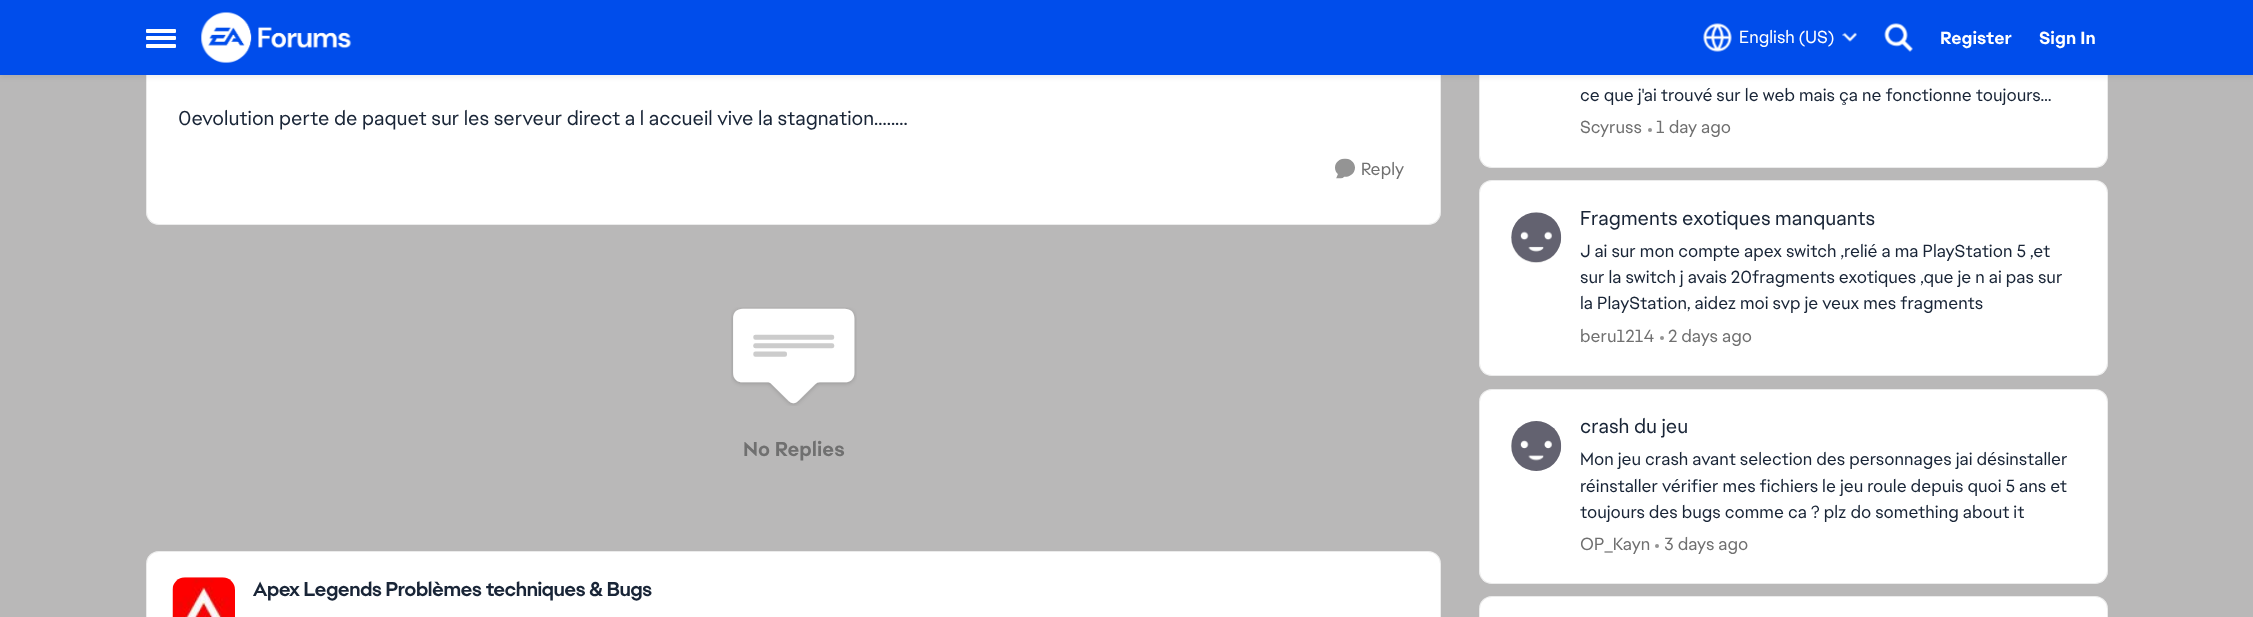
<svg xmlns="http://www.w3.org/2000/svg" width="2253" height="617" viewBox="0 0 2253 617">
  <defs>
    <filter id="blur1" x="-50%" y="-200%" width="200%" height="500%"><feGaussianBlur stdDeviation="2.5"/></filter>
  </defs>
  <rect width="100%" height="100%" fill="#b9b8b8"/>
  <rect x="146" y="-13" width="1295" height="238" rx="13" fill="#ffffff"/>
  <rect x="146.5" y="-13.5" width="1294" height="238" rx="12.5" fill="none" stroke="#000000" stroke-opacity="0.08"/>
  <rect x="1479" y="-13" width="629" height="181" rx="13" fill="#ffffff"/>
  <rect x="1479.5" y="-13.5" width="628" height="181" rx="12.5" fill="none" stroke="#000000" stroke-opacity="0.08"/>
  <rect x="0" y="3" width="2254" height="75" fill="#333333" fill-opacity="0.06" filter="url(#blur1)"/>
  <rect x="0" y="0" width="2253" height="75" fill="#004deb"/>
  <rect x="146" y="29" width="30" height="4" rx="1" fill="#ffffff"/>
  <rect x="146" y="36" width="30" height="4" rx="1" fill="#ffffff"/>
  <rect x="146" y="44" width="30" height="4" rx="1" fill="#ffffff"/>
  <image x="201" y="12" width="151" height="51" href="img1.png"/>
  <image x="1703" y="23" width="29" height="29" href="img2.png"/>
  <text x="1739" y="43" font-family="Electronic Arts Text" font-size="17.5" fill="#ffffff">English (US)</text>
  <image x="1842" y="32" width="15" height="10" href="img3.png"/>
  <image x="1884" y="23" width="29" height="29" href="img4.png"/>
  <text x="1940" y="44" font-family="Electronic Arts Text" font-size="17.5" font-weight="bold" fill="#ffffff">Register</text>
  <text x="2039" y="44" font-family="Electronic Arts Text" font-size="17.5" font-weight="bold" fill="#ffffff">Sign In</text>
  <text x="178" y="125" font-family="Electronic Arts Text" font-size="20" fill="#192537">0evolution perte de paquet sur les serveur direct a l accueil vive la stagnation........</text>
  <image x="1335" y="158" width="20" height="21" href="img5.png"/>
  <text x="1361" y="175" font-family="Electronic Arts Text" font-size="17.5" fill="#707070">Reply</text>
  <image x="731" y="307" width="126" height="99" href="img6.png"/>
  <text x="743" y="456" font-family="Electronic Arts Text" font-size="20" font-weight="bold" fill="#707070">No Replies</text>
  <rect x="146" y="551" width="1295" height="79" rx="13" fill="#ffffff"/>
  <rect x="146.5" y="551.5" width="1294" height="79" rx="12.5" fill="none" stroke="#000000" stroke-opacity="0.08"/>
  <image x="172" y="577" width="63" height="40" href="img7.png"/>
  <text x="253" y="596" font-family="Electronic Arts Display" font-size="20" font-weight="bold" fill="#192537">Apex Legends Problèmes techniques &amp; Bugs</text>
  <text x="1580" y="101" font-family="Electronic Arts Text" font-size="17.5" fill="#192537">ce que j'ai trouvé sur le web mais ça ne fonctionne toujours…</text>
  <text x="1580" y="133" font-family="Electronic Arts Text" font-size="17.5" fill="#707070">Scyruss</text>
  <circle cx="1650" cy="130" r="2" fill="#949494"/>
  <text x="1656" y="133" font-family="Electronic Arts Text" font-size="17.5" fill="#707070">1 day ago</text>
  <rect x="1479" y="180" width="629" height="196" rx="13" fill="#ffffff"/>
  <rect x="1479.5" y="180.5" width="628" height="195" rx="12.5" fill="none" stroke="#000000" stroke-opacity="0.08"/>
  <circle cx="1536" cy="238" r="25" fill="#d9d9d9"/>
  <image x="1511" y="212" width="51" height="51" href="img8.png"/>
  <text x="1580" y="225" font-family="Electronic Arts Text" font-size="20" fill="#192537">Fragments exotiques manquants</text>
  <text x="1580" y="257" font-family="Electronic Arts Text" font-size="17.5" fill="#192537">J ai sur mon compte apex switch ,relié a ma PlayStation 5 ,et</text>
  <text x="1580" y="283" font-family="Electronic Arts Text" font-size="17.5" fill="#192537">sur la switch j avais 20fragments exotiques ,que je n ai pas sur</text>
  <text x="1580" y="309" font-family="Electronic Arts Text" font-size="17.5" fill="#192537">la PlayStation, aidez moi svp je veux mes fragments</text>
  <text x="1580" y="342" font-family="Electronic Arts Text" font-size="17.5" fill="#707070">beru1214</text>
  <circle cx="1662" cy="338" r="2" fill="#949494"/>
  <text x="1668" y="342" font-family="Electronic Arts Text" font-size="17.5" fill="#707070">2 days ago</text>
  <rect x="1479" y="389" width="629" height="195" rx="13" fill="#ffffff"/>
  <rect x="1479.5" y="389.5" width="628" height="194" rx="12.5" fill="none" stroke="#000000" stroke-opacity="0.08"/>
  <circle cx="1536" cy="446" r="25" fill="#d9d9d9"/>
  <image x="1511" y="421" width="51" height="50" href="img9.png"/>
  <text x="1580" y="433" font-family="Electronic Arts Text" font-size="20" fill="#192537">crash du jeu</text>
  <text x="1580" y="465" font-family="Electronic Arts Text" font-size="17.5" fill="#192537">Mon jeu crash avant selection des personnages jai désinstaller</text>
  <text x="1580" y="492" font-family="Electronic Arts Text" font-size="17.5" fill="#192537">réinstaller vérifier mes fichiers le jeu roule depuis quoi 5 ans et</text>
  <text x="1580" y="518" font-family="Electronic Arts Text" font-size="17.5" fill="#192537">toujours des bugs comme ca ? plz do something about it</text>
  <text x="1580" y="550" font-family="Electronic Arts Text" font-size="17.5" fill="#707070">OP_Kayn</text>
  <circle cx="1657" cy="546" r="2" fill="#949494"/>
  <text x="1664" y="550" font-family="Electronic Arts Text" font-size="17.5" fill="#707070">3 days ago</text>
  <rect x="1479" y="596" width="629" height="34" rx="13" fill="#ffffff"/>
  <rect x="1479.5" y="596.5" width="628" height="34" rx="12.5" fill="none" stroke="#000000" stroke-opacity="0.08"/>
</svg>
